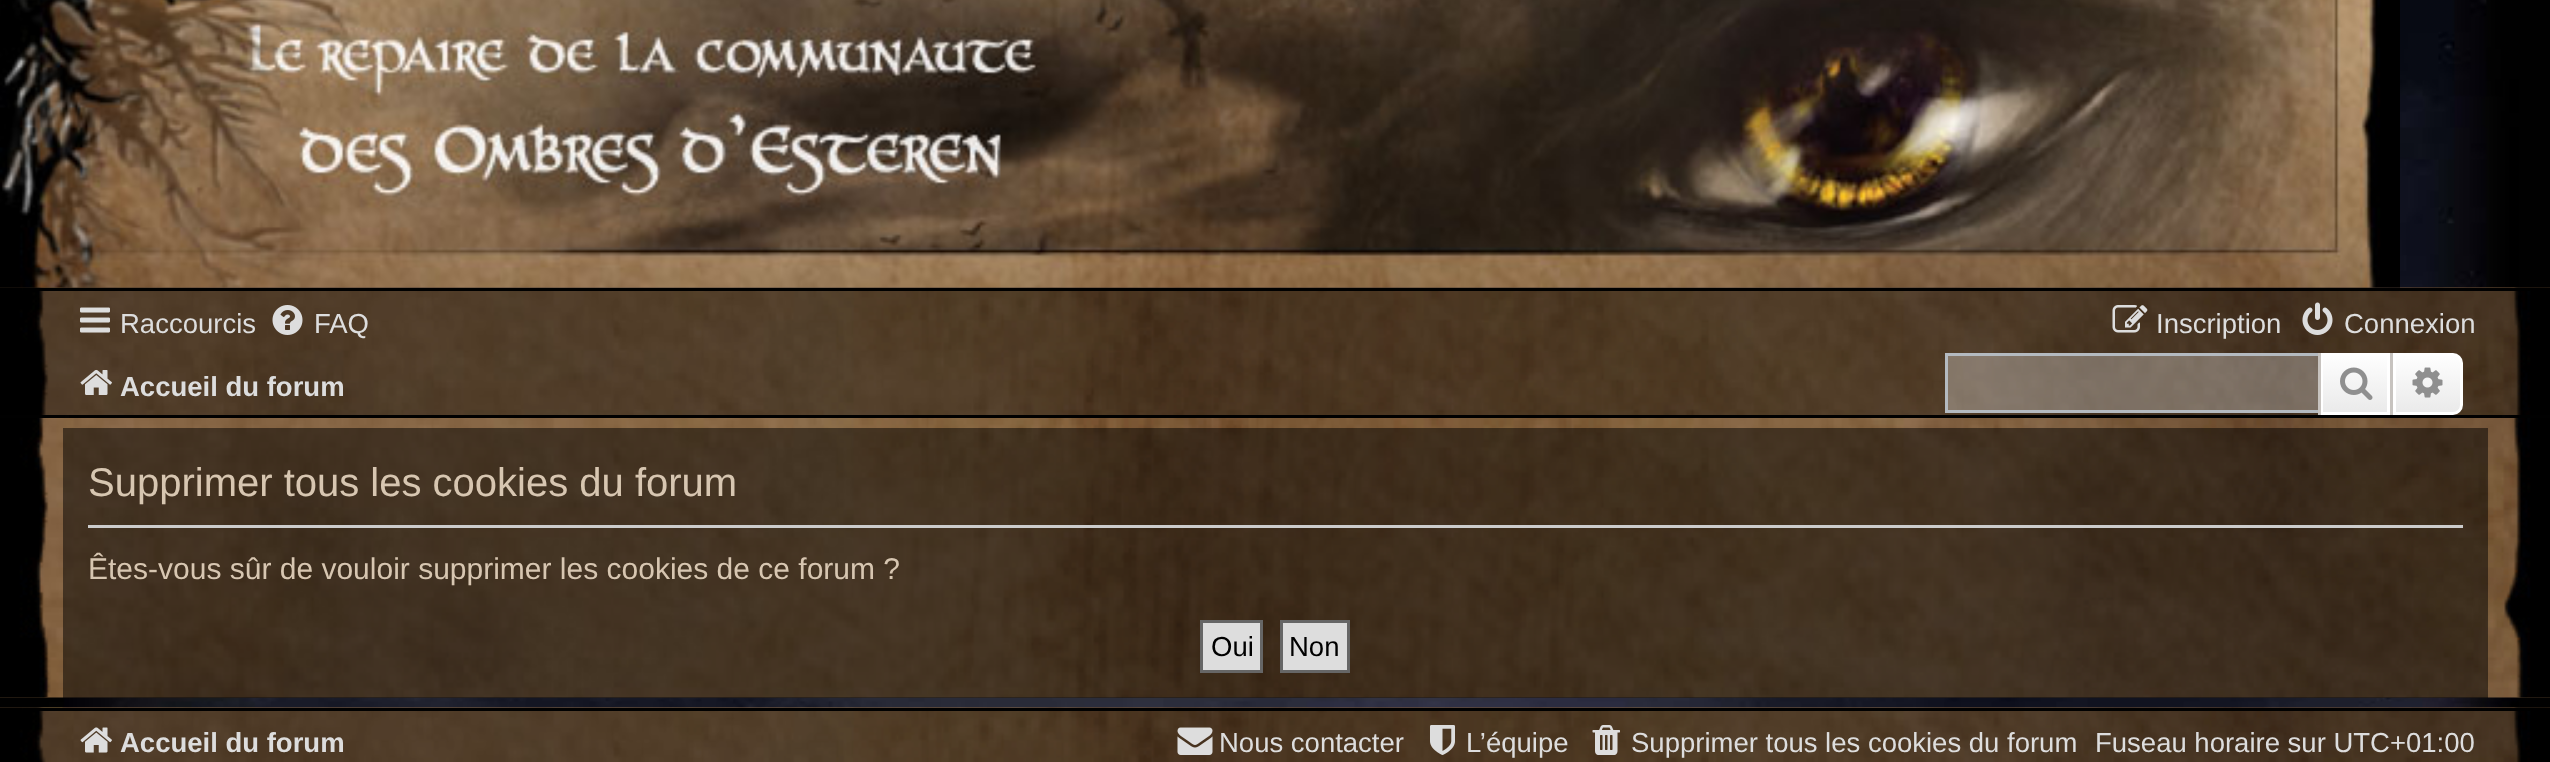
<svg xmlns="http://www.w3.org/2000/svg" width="2550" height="762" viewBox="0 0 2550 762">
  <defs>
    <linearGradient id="g1" gradientUnits="userSpaceOnUse" x1="2355" y1="353" x2="2355" y2="415"><stop offset="0" stop-color="#ffffff"/><stop offset="1" stop-color="#e9e9e9"/></linearGradient>
    <linearGradient id="g2" gradientUnits="userSpaceOnUse" x1="2428" y1="353" x2="2428" y2="415"><stop offset="0" stop-color="#ffffff"/><stop offset="1" stop-color="#e9e9e9"/></linearGradient>
  </defs>
  <rect width="100%" height="100%" fill="#ffffff"/>
  <image x="0" y="0" width="2550" height="708" href="img1.png"/>
  <image x="0" y="287" width="2550" height="128" href="img3.png"/>
  <image x="0" y="0" width="2400" height="288" href="img2.png"/>
  <rect x="23" y="288" width="2507" height="3" fill="#000000"/>
  <rect x="35" y="291" width="2486" height="124" fill="#000000" fill-opacity="0.4"/>
  <image x="80" y="307" width="30" height="26" href="img4.png"/>
  <text x="120" y="333" font-family="Liberation Sans" font-size="27.5" fill="#dddddd">Raccourcis</text>
  <image x="272" y="305" width="31" height="30" href="img5.png"/>
  <text x="314" y="333" font-family="Liberation Sans" font-size="27.5" fill="#dddddd">FAQ</text>
  <image x="2112" y="305" width="36" height="28" href="img6.png"/>
  <text x="2156" y="333" font-family="Liberation Sans" font-size="27.5" fill="#dddddd">Inscription</text>
  <image x="2302" y="302" width="31" height="33" href="img7.png"/>
  <text x="2344" y="333" font-family="Liberation Sans" font-size="27.5" fill="#dddddd">Connexion</text>
  <image x="80" y="369" width="32" height="26" href="img8.png"/>
  <text x="120" y="396" font-family="Liberation Sans" font-size="27.5" font-weight="bold" fill="#dddddd">Accueil du forum</text>
  <rect x="1948" y="356" width="370" height="54" fill="#ffffff" fill-opacity="0.3"/>
  <rect x="1945" y="353" width="373" height="3" fill="#b4bac0"/>
  <rect x="1945" y="410" width="373" height="3" fill="#b4bac0"/>
  <rect x="1945" y="353" width="3" height="60" fill="#b4bac0"/>
  <rect x="2323" y="356" width="64" height="56" fill="url(#g1)"/>
  <rect x="2321.5" y="354.5" width="67" height="59" fill="none" stroke="#ffffff" stroke-width="3"/>
  <rect x="2390" y="353" width="3" height="62" fill="#c7c3bf"/>
  <rect x="2318" y="353" width="3" height="62" fill="#c7c3bf"/>
  <image x="2340" y="367" width="33" height="33" href="img9.png"/>
  <path d="M2394.5 354.5H2453C2457.5 354.5 2461.5 358.5 2461.5 363V405C2461.5 409.5 2457.5 413.5 2453 413.5H2394.5Z" fill="url(#g2)" stroke="#ffffff" stroke-width="3"/>
  <image x="2412" y="367" width="31" height="31" href="img10.png"/>
  <image x="0" y="418" width="2550" height="280" href="img11.png"/>
  <rect x="69" y="415" width="2433" height="3" fill="#000000"/>
  <rect x="63" y="428" width="2425" height="270" fill="#000000" fill-opacity="0.5"/>
  <rect x="88" y="525" width="2375" height="3" fill="#cccccc"/>
  <text x="88" y="496" font-family="Liberation Sans" font-size="40" fill="#d7c6b1">Supprimer tous les cookies du forum</text>
  <text x="88" y="579" font-family="Liberation Sans" font-size="30" fill="#d7c6b1">Êtes-vous sûr de vouloir supprimer les cookies de ce forum ?</text>
  <rect x="1201.5" y="621.5" width="60" height="50" fill="#dddddd" stroke="#666666" stroke-width="3"/>
  <text x="1211" y="656" font-family="Liberation Sans" font-size="27.5" fill="#000000">Oui</text>
  <rect x="1281.5" y="621.5" width="67" height="50" fill="#dddddd" stroke="#666666" stroke-width="3"/>
  <text x="1289" y="656" font-family="Liberation Sans" font-size="27.5" fill="#000000">Non</text>
  <image x="0" y="707" width="2550" height="55" href="img12.png"/>
  <rect x="23" y="708" width="2507" height="3" fill="#000000"/>
  <rect x="35" y="711" width="2486" height="51" fill="#000000" fill-opacity="0.4"/>
  <image x="80" y="727" width="32" height="26" href="img13.png"/>
  <text x="120" y="752" font-family="Liberation Sans" font-size="27.5" font-weight="bold" fill="#dddddd">Accueil du forum</text>
  <image x="1177" y="727" width="36" height="28" href="img14.png"/>
  <text x="1219" y="752" font-family="Liberation Sans" font-size="27.5" fill="#dddddd">Nous contacter</text>
  <image x="1430" y="725" width="25" height="30" href="img15.png"/>
  <text x="1466" y="752" font-family="Liberation Sans" font-size="27.5" fill="#dddddd">L’équipe</text>
  <image x="1592" y="725" width="28" height="30" href="img16.png"/>
  <text x="1631" y="752" font-family="Liberation Sans" font-size="27.5" fill="#dddddd">Supprimer tous les cookies du forum</text>
  <text x="2095" y="752" font-family="Liberation Sans" font-size="27.5" fill="#dddddd">Fuseau horaire sur UTC+01:00</text>
</svg>
